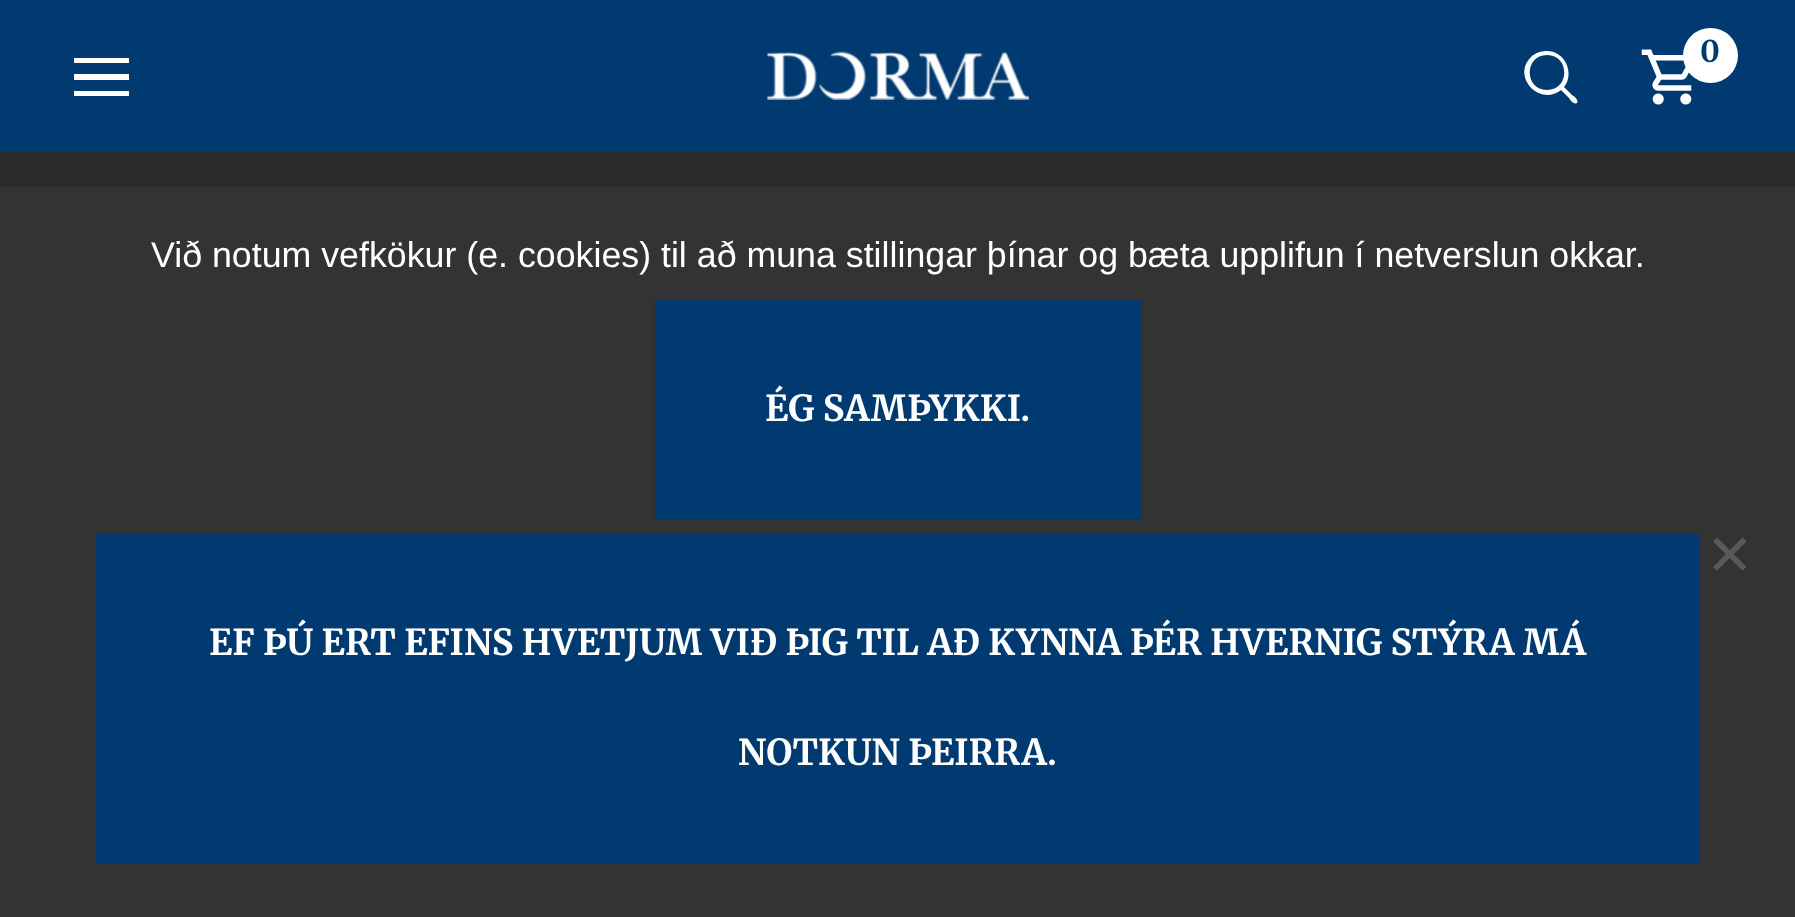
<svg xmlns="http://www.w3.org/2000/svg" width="1795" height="917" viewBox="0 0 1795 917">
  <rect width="100%" height="100%" fill="#2b2b2b"/>
  <rect x="0" y="0" width="1795" height="151" fill="#003a70"/>
  <path d="M74 58V63H129V58ZM74 74V80H129V74ZM74 91V96H129V91Z" fill="#ffffff"/>
  <image x="767" y="51" width="262" height="49" href="img1.png"/>
  <path d="M1547 51C1541 51 1535 53 1531 57C1511 77 1540 107 1561 90L1569 98C1570 100 1574 105 1577 103C1579 100 1574 96 1572 95L1564 87C1575 73 1565 51 1547 51ZM1547 55C1570 55 1570 90 1547 90C1524 90 1524 55 1547 55Z" fill="#ffffff"/>
  <image x="1641" y="49" width="51" height="56" href="img2.png"/>
  <circle cx="1710.5" cy="55.5" r="27.5" fill="#ffffff"/>
  <text x="1700" y="62" font-family="Merriweather" font-size="30" font-weight="bold" fill="#003a70">0</text>
  <rect x="0" y="187" width="1795" height="730" fill="#333333"/>
  <text x="151" y="267" font-family="Liberation Sans" font-size="35.75" fill="#ffffff">Við notum vefkökur (e. cookies) til að muna stillingar þínar og bæta upplifun í netverslun okkar.</text>
  <rect x="655" y="300" width="486" height="220" fill="#013a70"/>
  <text x="765" y="421" font-family="Merriweather" font-size="35.75" font-weight="bold" fill="#ffffff">ÉG SAMÞYKKI.</text>
  <rect x="96" y="534" width="1604" height="330" fill="#013a70"/>
  <text x="209" y="655" font-family="Merriweather" font-size="35.75" font-weight="bold" fill="#ffffff">EF ÞÚ ERT EFINS HVETJUM VIÐ ÞIG TIL AÐ KYNNA ÞÉR HVERNIG STÝRA MÁ</text>
  <text x="738" y="765" font-family="Merriweather" font-size="35.75" font-weight="bold" fill="#ffffff">NOTKUN ÞEIRRA.</text>
  <path d="M1742.5 537.5L1746.5 541.5L1717 570.5L1713 567Z" fill="#5a5a5a"/>
  <path d="M1713 541.5L1717 537.5L1746.5 567L1742.5 570.5Z" fill="#5a5a5a"/>
</svg>
